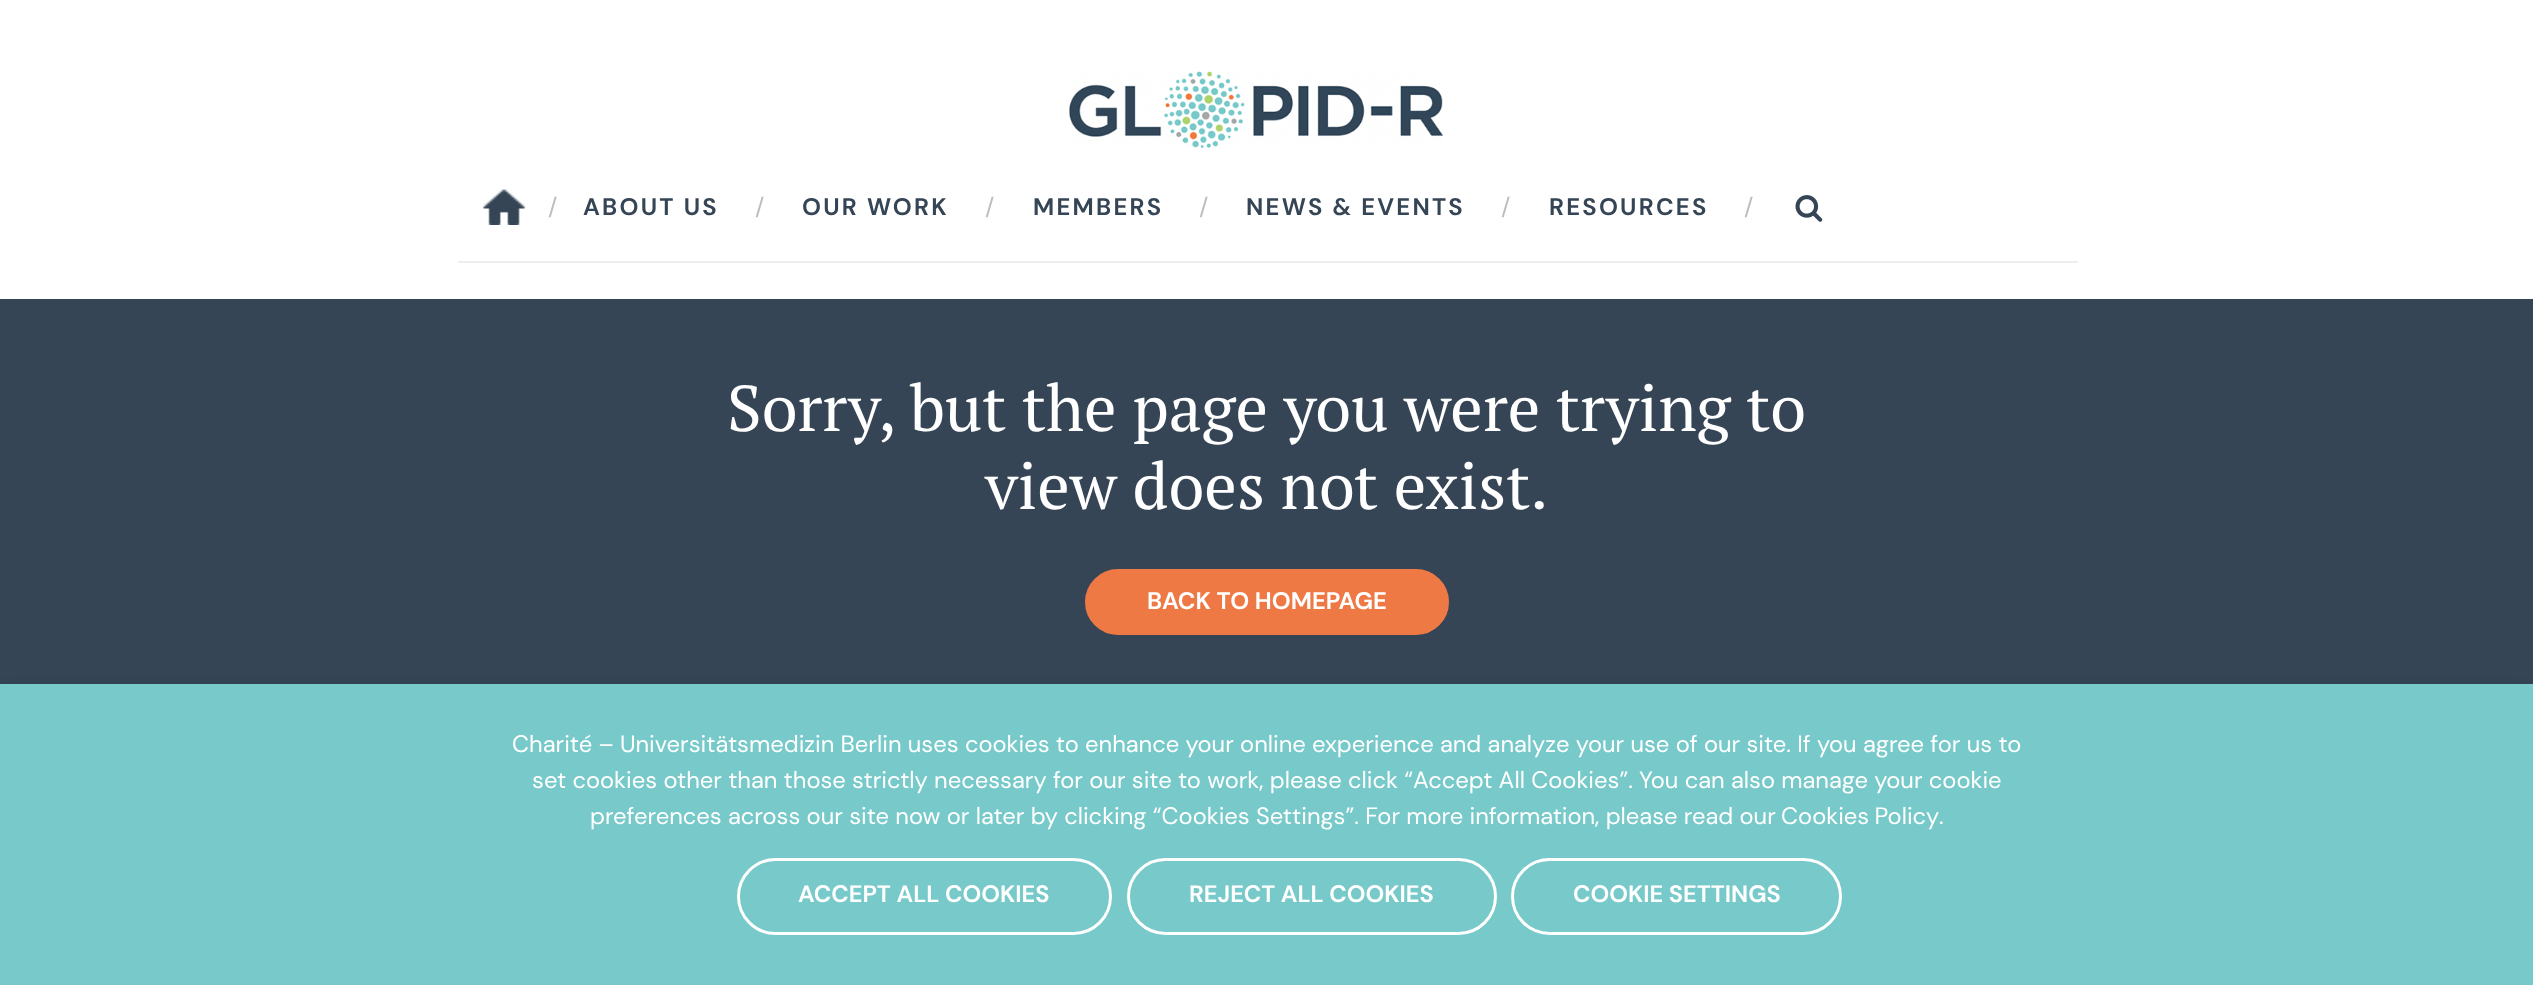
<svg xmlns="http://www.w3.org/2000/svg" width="2533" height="985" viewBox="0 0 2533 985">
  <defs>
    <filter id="blur1" x="-50%" y="-200%" width="200%" height="500%"><feGaussianBlur stdDeviation="7.5"/></filter>
  </defs>
  <rect width="100%" height="100%" fill="#ffffff"/>
  <image x="1069" y="71" width="374" height="78" href="img1.png"/>
  <rect x="458" y="261" width="1620" height="2" fill="#eeeeee"/>
  <image x="483" y="189" width="43" height="36" href="img2.png"/>
  <text x="548" y="215" font-family="DM Sans" font-size="24" fill="#bcbebd">/</text>
  <text x="583" y="215" font-family="DM Sans" font-size="24" font-weight="bold" letter-spacing="2.25" fill="#354555">ABOUT US</text>
  <text x="755" y="215" font-family="DM Sans" font-size="24" letter-spacing="2.25" fill="#bcbebd">/</text>
  <text x="802" y="215" font-family="DM Sans" font-size="24" font-weight="bold" letter-spacing="2.25" fill="#354555">OUR WORK</text>
  <text x="985" y="215" font-family="DM Sans" font-size="24" letter-spacing="2.25" fill="#bcbebd">/</text>
  <text x="1033" y="215" font-family="DM Sans" font-size="24" font-weight="bold" letter-spacing="2.25" fill="#354555">MEMBERS</text>
  <text x="1199" y="215" font-family="DM Sans" font-size="24" letter-spacing="2.25" fill="#bcbebd">/</text>
  <text x="1246" y="215" font-family="DM Sans" font-size="24" font-weight="bold" letter-spacing="2.25" fill="#354555">NEWS &amp; EVENTS</text>
  <text x="1501" y="215" font-family="DM Sans" font-size="24" letter-spacing="2.25" fill="#bcbebd">/</text>
  <text x="1549" y="215" font-family="DM Sans" font-size="24" font-weight="bold" letter-spacing="2.25" fill="#354555">RESOURCES</text>
  <text x="1744" y="215" font-family="DM Sans" font-size="24" letter-spacing="2.25" fill="#bcbebd">/</text>
  <image x="1795" y="195" width="28" height="27" href="img3.png"/>
  <rect x="0" y="299" width="2533" height="385" fill="#354555"/>
  <text x="727" y="431" font-family="PT Serif" font-size="64.75" fill="#ffffff">Sorry, but the page you were trying to</text>
  <text x="985" y="509" font-family="PT Serif" font-size="64.75" fill="#ffffff">view does not exist.</text>
  <rect x="1086.5" y="570.5" width="361" height="63" rx="31.5" fill="#ee7944" stroke="#ee7944" stroke-width="3"/>
  <text x="1147" y="609" font-family="DM Sans" font-size="24" font-weight="bold" fill="#ffffff">BACK TO HOMEPAGE</text>
  <rect x="0" y="692" width="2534" height="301" fill="#000000" fill-opacity="0.5" filter="url(#blur1)"/>
  <rect x="0" y="684" width="2533" height="301" fill="#78c9ca"/>
  <text x="512" y="752" font-family="DM Sans" font-size="23.75" fill="#ffffff">Charité – Universitätsmedizin Berlin uses cookies to enhance your online experience and analyze your use of our site. If you agree for us to</text>
  <text x="532" y="788" font-family="DM Sans" font-size="23.75" fill="#ffffff">set cookies other than those strictly necessary for our site to work, please click “Accept All Cookies”. You can also manage your cookie</text>
  <text x="590" y="824" font-family="DM Sans" font-size="23.75" fill="#ffffff">preferences across our site now or later by clicking “Cookies Settings”. For more information, please read our</text>
  <text x="1781" y="824" word-spacing="-1" font-family="DM Sans" font-size="23.75" fill="#ffffff">Cookies Policy</text>
  <text x="1939" y="824" font-family="DM Sans" font-size="23.75" fill="#ffffff">.</text>
  <rect x="738.5" y="859.5" width="372" height="74" rx="37" fill="none" stroke="#ffffff" stroke-width="3"/>
  <text x="798" y="902" font-family="DM Sans" font-size="23.75" font-weight="bold" fill="#ffffff">ACCEPT ALL COOKIES</text>
  <rect x="1128.5" y="859.5" width="367" height="74" rx="37" fill="none" stroke="#ffffff" stroke-width="3"/>
  <text x="1189" y="902" font-family="DM Sans" font-size="23.75" font-weight="bold" fill="#ffffff">REJECT ALL COOKIES</text>
  <rect x="1512.5" y="859.5" width="328" height="74" rx="37" fill="none" stroke="#ffffff" stroke-width="3"/>
  <text x="1573" y="902" font-family="DM Sans" font-size="23.75" font-weight="bold" fill="#ffffff">COOKIE SETTINGS</text>
</svg>
